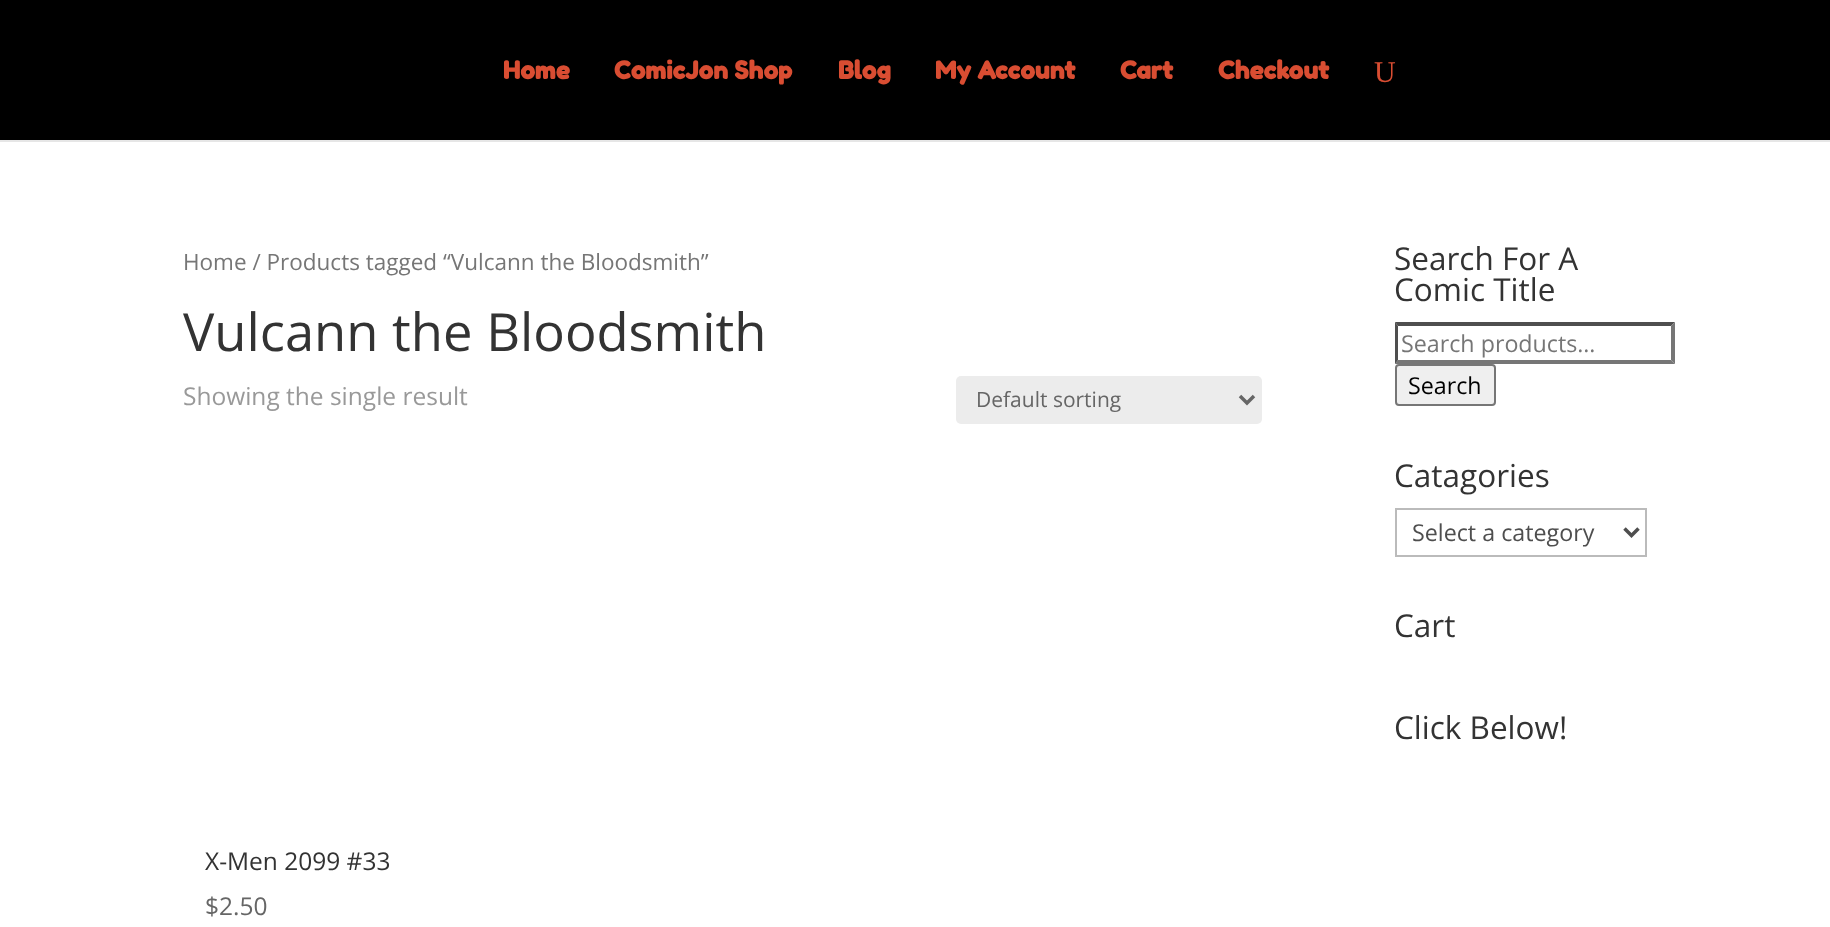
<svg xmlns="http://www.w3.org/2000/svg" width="1830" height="927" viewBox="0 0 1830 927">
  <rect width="100%" height="100%" fill="#ffffff"/>
  <path d="M0 140V142H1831V2H1830V140Z" fill="#e6e6e6"/>
  <rect x="0" y="0" width="1830" height="140" fill="#000000"/>
  <text x="503" y="79" font-family="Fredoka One" font-size="24.5" font-weight="bold" fill="#d94d32">Home</text>
  <text x="614" y="79" font-family="Fredoka One" font-size="24.5" font-weight="bold" fill="#d94d32">ComicJon Shop</text>
  <text x="838" y="79" font-family="Fredoka One" font-size="24.5" font-weight="bold" fill="#d94d32">Blog</text>
  <text x="935" y="79" font-family="Fredoka One" font-size="24.5" font-weight="bold" fill="#d94d32">My Account</text>
  <text x="1120" y="79" font-family="Fredoka One" font-size="24.5" font-weight="bold" fill="#d94d32">Cart</text>
  <text x="1218" y="79" font-family="Fredoka One" font-size="24.5" font-weight="bold" fill="#d94d32">Checkout</text>
  <text x="1374" y="82" font-family="Liberation Serif" font-size="30" fill="#d94d32">U</text>
  <text x="183" y="270" font-family="Open Sans" font-size="22.5" fill="#767676">Home / Products tagged “Vulcann the Bloodsmith”</text>
  <text x="183" y="351" font-family="Open Sans" font-size="52.5" fill="#333333">Vulcann the Bloodsmith</text>
  <text x="183" y="405" font-family="Open Sans" font-size="24.5" fill="#999999">Showing the single result</text>
  <rect x="956" y="376" width="306" height="48" rx="5" fill="#ececec"/>
  <path d="M1240 396L1247 403L1254 396" fill="none" stroke="#666666" stroke-width="3.5"/>
  <text x="976" y="407" font-family="Open Sans" font-size="21" fill="#666666">Default sorting</text>
  <text x="205" y="870" font-family="Open Sans" font-size="24.5" fill="#333333">X-Men 2099 #33</text>
  <text x="205" y="915" font-family="Open Sans" font-size="24.5" fill="#666666">$2.50</text>
  <text x="1394" y="270" font-family="Open Sans" font-size="31.5" fill="#333333">Search For A</text>
  <text x="1394" y="301" font-family="Open Sans" font-size="31.5" fill="#333333">Comic Title</text>
  <path d="M1395 322H1675L1671 326H1398Z" fill="#4f4f4f"/>
  <path d="M1675 322V364L1671 360V326Z" fill="#767676"/>
  <path d="M1675 364H1395L1398 360H1671Z" fill="#767676"/>
  <path d="M1395 364V322L1398 326V360Z" fill="#4f4f4f"/>
  <text x="1401" y="352" font-family="Open Sans" font-size="23.25" fill="#767676">Search products…</text>
  <rect x="1396" y="365" width="99" height="40" rx="3" fill="#efefef" stroke="#767676" stroke-width="2"/>
  <text x="1408" y="394" font-family="Open Sans" font-size="23.25" fill="#000000">Search</text>
  <text x="1394" y="487" font-family="Open Sans" font-size="31.5" fill="#333333">Catagories</text>
  <rect x="1396" y="509" width="250" height="47" fill="none" stroke="#bbbbbb" stroke-width="2"/>
  <path d="M1624.5 528.5L1631.5 535.5L1638.5 528.5" fill="none" stroke="#4e4e4e" stroke-width="3.5"/>
  <text x="1412" y="541" font-family="Open Sans" font-size="23.25" fill="#4e4e4e">Select a category</text>
  <text x="1394" y="637" font-family="Open Sans" font-size="31.5" fill="#333333">Cart</text>
  <text x="1394" y="739" font-family="Open Sans" font-size="31.5" fill="#333333">Click Below!</text>
</svg>
